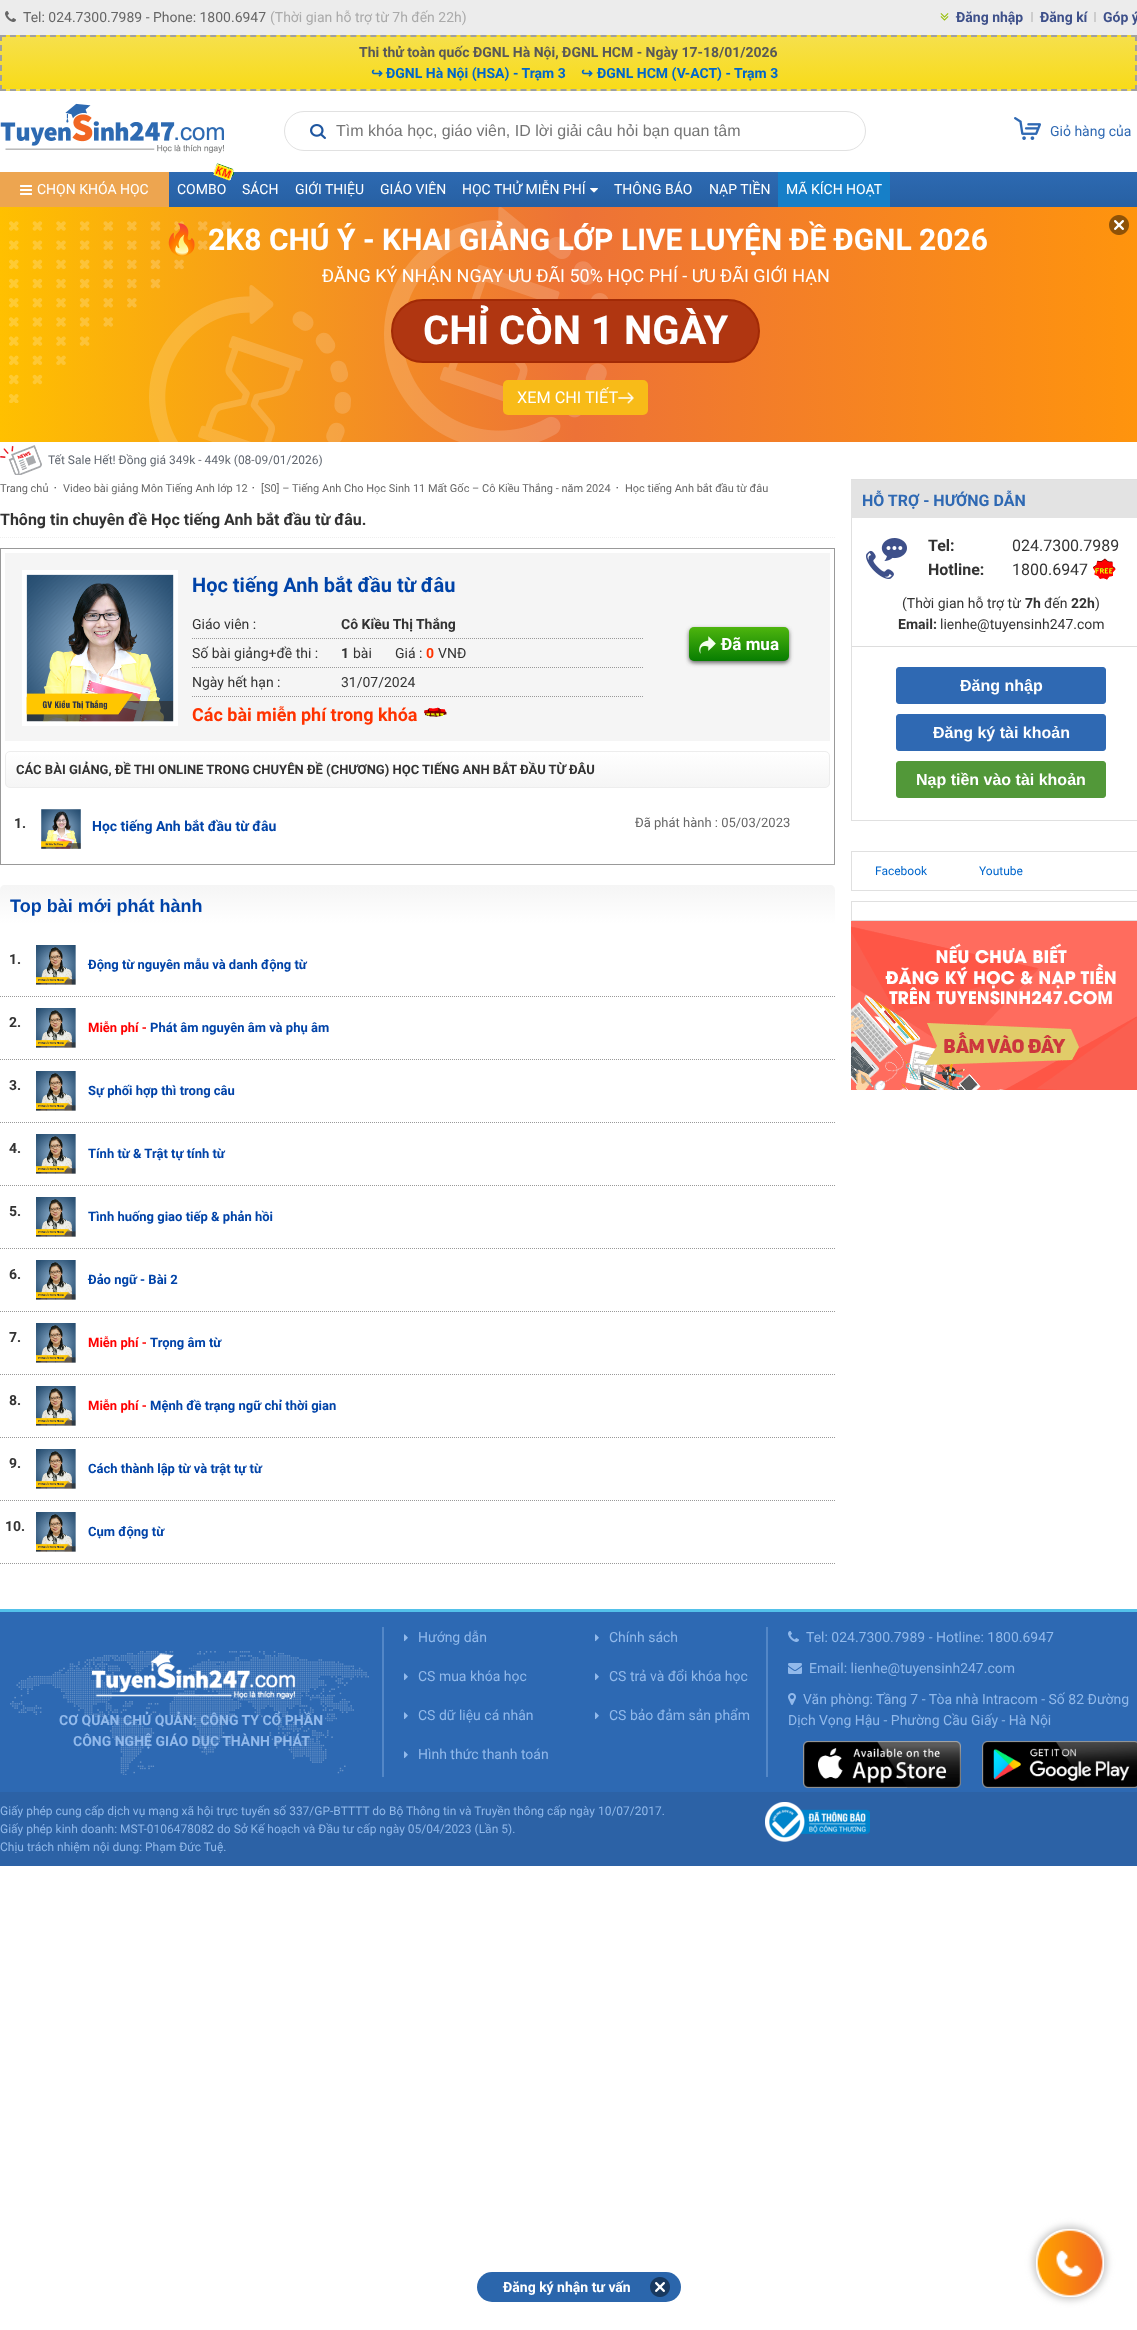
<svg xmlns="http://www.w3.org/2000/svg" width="1137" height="2330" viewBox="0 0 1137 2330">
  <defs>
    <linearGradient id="g1" gradientUnits="userSpaceOnUse" x1="569" y1="37" x2="569" y2="-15"><stop offset="0" stop-color="#f8db19"/><stop offset="1" stop-color="#f6e04b"/></linearGradient>
    <linearGradient id="g2" gradientUnits="userSpaceOnUse" x1="569" y1="89" x2="569" y2="37"><stop offset="0" stop-color="#f8db19"/><stop offset="1" stop-color="#f6e04b"/></linearGradient>
    <linearGradient id="g3" gradientUnits="userSpaceOnUse" x1="569" y1="141" x2="569" y2="89"><stop offset="0" stop-color="#f8db19"/><stop offset="1" stop-color="#f6e04b"/></linearGradient>
    <linearGradient id="g4" gradientUnits="userSpaceOnUse" x1="576" y1="172" x2="576" y2="207"><stop offset="0" stop-color="#2d6ab2"/><stop offset="1" stop-color="#2760a3"/></linearGradient>
    <linearGradient id="g5" gradientUnits="userSpaceOnUse" x1="0" y1="325" x2="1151" y2="324"><stop offset="0" stop-color="#ffc000"/><stop offset="0.5" stop-color="#ed7237"/><stop offset="1" stop-color="#ff950c"/></linearGradient>
    <filter id="blur1" x="-50%" y="-200%" width="200%" height="500%"><feGaussianBlur stdDeviation="2"/></filter>
    <linearGradient id="g6" gradientUnits="userSpaceOnUse" x1="689" y1="627" x2="689" y2="661"><stop offset="0" stop-color="#4eb50e"/><stop offset="1" stop-color="#077d01"/></linearGradient>
    <clipPath id="clip1"><rect x="5" y="751" width="825" height="37" rx="5"/></clipPath>
    <linearGradient id="g7" gradientUnits="userSpaceOnUse" x1="6" y1="752" x2="6" y2="787"><stop offset="0" stop-color="#ffffff"/><stop offset="1" stop-color="#f5f5f5"/></linearGradient>
    <linearGradient id="g8" gradientUnits="userSpaceOnUse" x1="0" y1="885" x2="0" y2="924"><stop offset="0" stop-color="#f5f5f5"/><stop offset="1" stop-color="#ffffff"/></linearGradient>
    <filter id="blur2" x="-50%" y="-200%" width="200%" height="500%"><feGaussianBlur stdDeviation="3.5"/></filter>
  </defs>
  <rect width="100%" height="100%" fill="#ffffff"/>
  <rect x="0" y="0" width="1137" height="35" fill="#ececec"/>
  <image x="5" y="11" width="11" height="11" href="img1.png"/>
  <text x="23" y="22" font-family="Roboto" font-size="14" fill="#666666">Tel: 024.7300.7989 - Phone: 1800.6947</text>
  <text x="270" y="22" font-family="Roboto" font-size="14" fill="#aaaaaa">(Thời gian hỗ trợ từ 7h đến 22h)</text>
  <image x="940" y="13" width="9" height="8" href="img2.png"/>
  <rect x="1031" y="12" width="2" height="10" fill="#cdcdcd"/>
  <text x="956" y="22" font-family="Roboto" font-size="14" font-weight="bold" fill="#3e508a">Đăng nhập</text>
  <rect x="1094" y="12" width="2" height="10" fill="#cdcdcd"/>
  <text x="1040" y="22" font-family="Roboto" font-size="14" font-weight="bold" fill="#3e508a">Đăng kí</text>
  <text x="1103" y="22" font-family="Roboto" font-size="14" font-weight="bold" fill="#3e508a">Góp ý</text>
  <rect x="0" y="35" width="1137" height="2" fill="url(#g1)"/>
  <rect x="0" y="37" width="1137" height="52" fill="url(#g2)"/>
  <rect x="0" y="89" width="1137" height="2" fill="url(#g3)"/>
  <path d="M0 36H1137" fill="none" stroke="#a0a0a0" stroke-width="2" stroke-dasharray="6 4.01"/>
  <path d="M1136 35V91" fill="none" stroke="#a0a0a0" stroke-width="2" stroke-dasharray="6 4"/>
  <path d="M0 90H1137" fill="none" stroke="#a0a0a0" stroke-width="2" stroke-dasharray="6 4.01"/>
  <path d="M1 35V91" fill="none" stroke="#a0a0a0" stroke-width="2" stroke-dasharray="6 4"/>
  <text x="359" y="57" font-family="Roboto" font-size="14" font-weight="bold" fill="#585858">Thi thử toàn quốc ĐGNL Hà Nội, ĐGNL HCM - Ngày 17-18/01/2026</text>
  <text x="371" y="78" font-family="DejaVu Sans" font-size="14" font-weight="bold" fill="#0066cc">↪</text>
  <text x="386" y="78" font-family="Roboto" font-size="14" font-weight="bold" fill="#0066cc">ĐGNL Hà Nội (HSA) - Trạm 3</text>
  <text x="581" y="78" font-family="DejaVu Sans" font-size="14" font-weight="bold" fill="#0066cc">↪</text>
  <text x="597" y="78" font-family="Roboto" font-size="14" font-weight="bold" fill="#0066cc">ĐGNL HCM (V-ACT) - Trạm 3</text>
  <image x="0" y="103" width="224" height="50" href="img3.png"/>
  <rect x="284.5" y="111.5" width="581" height="39" rx="19.5" fill="none" stroke="#e1e1e1"/>
  <image x="310" y="124" width="16" height="15" href="img4.png"/>
  <text x="336" y="136" font-family="Liberation Sans" font-size="16" fill="#757575">Tìm khóa học, giáo viên, ID lời giải câu hỏi bạn quan tâm</text>
  <image x="1014" y="117" width="27" height="23" href="img5.png"/>
  <text x="1050" y="136" font-family="Roboto" font-size="14" fill="#2f69b3">Giỏ hàng của</text>
  <rect x="169" y="172" width="968" height="35" fill="url(#g4)"/>
  <rect x="0" y="172" width="169" height="35" fill="#eda550"/>
  <image x="20" y="185" width="12" height="10" href="img6.png"/>
  <text x="37" y="194" font-family="Roboto" font-size="14" fill="#ffffff">CHỌN KHÓA HỌC</text>
  <image x="213" y="163" width="21" height="18" href="img7.png"/>
  <image x="213" y="164" width="21" height="17" href="img8.png"/>
  <text x="177" y="194" font-family="Roboto" font-size="14" fill="#ffffff">COMBO</text>
  <text x="242" y="194" font-family="Roboto" font-size="14" fill="#ffffff">SÁCH</text>
  <text x="295" y="194" font-family="Roboto" font-size="14" fill="#ffffff">GIỚI THIỆU</text>
  <text x="380" y="194" font-family="Roboto" font-size="14" fill="#ffffff">GIÁO VIÊN</text>
  <text x="462" y="194" font-family="Roboto" font-size="14" fill="#ffffff">HỌC THỬ MIỄN PHÍ</text>
  <image x="590" y="188" width="8" height="5" href="img9.png"/>
  <text x="614" y="194" font-family="Roboto" font-size="14" fill="#ffffff">THÔNG BÁO</text>
  <text x="709" y="194" font-family="Roboto" font-size="14" fill="#ffffff">NẠP TIỀN</text>
  <rect x="778" y="172" width="112" height="35" fill="#167fc8"/>
  <text x="786" y="194" font-family="Roboto" font-size="14" fill="#ffffff">MÃ KÍCH HOẠT</text>
  <rect x="0" y="207" width="1137" height="235" fill="url(#g5)"/>
  <image x="0" y="445" width="42" height="30" href="img13.png"/>
  <text x="48" y="464" font-family="Roboto" font-size="12" fill="#616770">Tết Sale Hết! Đồng giá 349k - 449k (08-09/01/2026)</text>
  <image x="9" y="207" width="599" height="250" href="img10.png"/>
  <text x="163" y="250" font-family="Noto Color Emoji" font-size="30" font-weight="bold" fill="#ffffff">🔥</text>
  <text x="208" y="250" font-family="Roboto" font-size="30" font-weight="bold" fill="#ffffff">2K8 CHÚ Ý - KHAI GIẢNG LỚP LIVE LUYỆN ĐỀ ĐGNL 2026</text>
  <text x="322" y="282" font-family="Roboto" font-size="18" fill="#ffffff">ĐĂNG KÝ NHẬN NGAY ƯU ĐÃI 50% HỌC PHÍ - ƯU ĐÃI GIỚI HẠN</text>
  <rect x="392" y="300" width="367" height="62" rx="31" fill="#b03611" stroke="#a22a06" stroke-width="2"/>
  <text x="423" y="344" font-family="Roboto" font-size="40" font-weight="bold" fill="#ffffff">CHỈ CÒN 1 NGÀY</text>
  <rect x="503" y="380" width="145" height="35" rx="5" fill="#f8bb18"/>
  <text x="517" y="403" font-family="Roboto" font-size="16.25" fill="#ffffff">XEM CHI TIẾT</text>
  <image x="618" y="392" width="16" height="12" href="img11.png"/>
  <image x="1109" y="215" width="20" height="20" href="img12.png"/>
  <image x="54" y="487" width="2" height="2" href="img14.png"/>
  <text x="0" y="492" font-family="Roboto" font-size="11" fill="#666666">Trang chủ</text>
  <image x="252" y="487" width="2" height="2" href="img14.png"/>
  <text x="63" y="492" font-family="Roboto" font-size="11" fill="#666666">Video bài giảng Môn Tiếng Anh lớp 12</text>
  <image x="616" y="487" width="2" height="2" href="img14.png"/>
  <text x="261" y="492" font-family="Roboto" font-size="11" fill="#666666">[S0] – Tiếng Anh Cho Học Sinh 11 Mất Gốc – Cô Kiều Thắng - năm 2024</text>
  <text x="625" y="492" font-family="Roboto" font-size="11" fill="#666666">Học tiếng Anh bắt đầu từ đâu</text>
  <path d="M0 537.5H835" fill="none" stroke="#eeeeee" stroke-dasharray="1 1"/>
  <text x="0" y="525" font-family="Roboto" font-size="16" font-weight="bold" fill="#333333">Thông tin chuyên đề Học tiếng Anh bắt đầu từ đâu.</text>
  <rect x="0.5" y="548.5" width="834" height="316" fill="none" stroke="#999999"/>
  <rect x="5" y="553" width="825" height="188" fill="#f5f5f5"/>
  <image x="22" y="570" width="156" height="156" href="img15.png"/>
  <text x="192" y="592" font-family="Roboto" font-size="20" font-weight="bold" fill="#0043a8">Học tiếng Anh bắt đầu từ đâu</text>
  <path d="M192 638.5H643" fill="none" stroke="#999999" stroke-dasharray="1 1"/>
  <text x="192" y="629" font-family="Roboto" font-size="14" fill="#333333">Giáo viên :</text>
  <text x="341" y="629" font-family="Roboto" font-size="14" font-weight="bold" fill="#333333">Cô Kiều Thị Thắng</text>
  <path d="M192 667.5H643" fill="none" stroke="#999999" stroke-dasharray="1 1"/>
  <text x="192" y="658" font-family="Roboto" font-size="14" fill="#333333">Số bài giảng+đề thi :</text>
  <text x="341" y="658" font-family="Roboto" font-size="14" font-weight="bold" fill="#333333">1</text>
  <text x="353" y="658" font-family="Roboto" font-size="14" fill="#333333">bài</text>
  <text x="395" y="658" font-family="Roboto" font-size="14" fill="#333333">Giá :</text>
  <text x="426" y="658" font-family="Roboto" font-size="14" font-weight="bold" fill="#ff3300">0</text>
  <text x="438" y="658" font-family="Roboto" font-size="14" fill="#333333">VNĐ</text>
  <path d="M192 696.5H643" fill="none" stroke="#999999" stroke-dasharray="1 1"/>
  <text x="192" y="687" font-family="Roboto" font-size="14" fill="#333333">Ngày hết hạn :</text>
  <text x="341" y="687" font-family="Roboto" font-size="14" fill="#333333">31/07/2024</text>
  <text x="192" y="721" font-family="Roboto" font-size="18" font-weight="bold" fill="#ff3300">Các bài miễn phí trong khóa</text>
  <image x="424" y="707" width="23" height="10" href="img16.png"/>
  <rect x="689" y="629" width="100" height="34" rx="5" fill="#666666" filter="url(#blur1)"/>
  <rect x="689" y="627" width="100" height="34" rx="5" fill="url(#g6)"/>
  <image x="699" y="636" width="17" height="18" href="img17.png"/>
  <text x="721" y="650" font-family="Roboto" font-size="17" font-weight="bold" fill="#ffffff">Đã mua</text>
  <g clip-path="url(#clip1)">
    <rect x="5" y="752" width="825" height="35" fill="url(#g7)"/>
  </g>
  <rect x="5.5" y="751.5" width="824" height="36" rx="4.5" fill="none" stroke="#ededed"/>
  <text x="16" y="774" font-family="Roboto" font-size="13" font-weight="bold" fill="#333333">CÁC BÀI GIẢNG, ĐỀ THI ONLINE TRONG CHUYÊN ĐỀ (CHƯƠNG) HỌC TIẾNG ANH BẮT ĐẦU TỪ ĐÂU</text>
  <text x="14" y="828" font-family="Roboto" font-size="14" font-weight="bold" fill="#333333">1.</text>
  <image x="41" y="809" width="40" height="40" href="img18.png"/>
  <text x="92" y="831" font-family="Roboto" font-size="14" font-weight="bold" fill="#0043a8">Học tiếng Anh bắt đầu từ đâu</text>
  <text x="635" y="827" font-family="Roboto" font-size="13" fill="#666666">Đã phát hành : 05/03/2023</text>
  <path d="M5 885H830C833 885 835 887 835 890V924H0V890C0 887 2 885 5 885Z" fill="url(#g8)"/>
  <text x="10" y="912" font-family="Liberation Sans" font-size="18" font-weight="bold" fill="#0043a8">Top bài mới phát hành</text>
  <path d="M0 996.5H835" fill="none" stroke="#999999" stroke-dasharray="1 1"/>
  <text x="9" y="964" font-family="Roboto" font-size="14" font-weight="bold" fill="#333333">1.</text>
  <image x="36" y="945" width="40" height="40" href="img19.png"/>
  <text x="88" y="969" font-family="Roboto" font-size="13" font-weight="bold" fill="#0043a8">Động từ nguyên mẫu và danh động từ</text>
  <path d="M0 1059.5H835" fill="none" stroke="#999999" stroke-dasharray="1 1"/>
  <text x="9" y="1027" font-family="Roboto" font-size="14" font-weight="bold" fill="#333333">2.</text>
  <image x="36" y="1008" width="40" height="40" href="img19.png"/>
  <text x="88" y="1032" font-family="Roboto" font-size="13" font-weight="bold" fill="#ff0000">Miễn phí -</text>
  <text x="150" y="1032" font-family="Roboto" font-size="13" font-weight="bold" fill="#0043a8">Phát âm nguyên âm và phụ âm</text>
  <path d="M0 1122.5H835" fill="none" stroke="#999999" stroke-dasharray="1 1"/>
  <text x="9" y="1090" font-family="Roboto" font-size="14" font-weight="bold" fill="#333333">3.</text>
  <image x="36" y="1071" width="40" height="40" href="img20.png"/>
  <text x="88" y="1095" font-family="Roboto" font-size="13" font-weight="bold" fill="#0043a8">Sự phối hợp thì trong câu</text>
  <path d="M0 1185.5H835" fill="none" stroke="#999999" stroke-dasharray="1 1"/>
  <text x="9" y="1153" font-family="Roboto" font-size="14" font-weight="bold" fill="#333333">4.</text>
  <image x="36" y="1134" width="40" height="40" href="img19.png"/>
  <text x="88" y="1158" font-family="Roboto" font-size="13" font-weight="bold" fill="#0043a8">Tính từ &amp; Trật tự tính từ</text>
  <path d="M0 1248.5H835" fill="none" stroke="#999999" stroke-dasharray="1 1"/>
  <text x="9" y="1216" font-family="Roboto" font-size="14" font-weight="bold" fill="#333333">5.</text>
  <image x="36" y="1197" width="40" height="40" href="img19.png"/>
  <text x="88" y="1221" font-family="Roboto" font-size="13" font-weight="bold" fill="#0043a8">Tình huống giao tiếp &amp; phản hồi</text>
  <path d="M0 1311.5H835" fill="none" stroke="#999999" stroke-dasharray="1 1"/>
  <text x="9" y="1279" font-family="Roboto" font-size="14" font-weight="bold" fill="#333333">6.</text>
  <image x="36" y="1260" width="40" height="40" href="img19.png"/>
  <text x="88" y="1284" font-family="Roboto" font-size="13" font-weight="bold" fill="#0043a8">Đảo ngữ - Bài 2</text>
  <path d="M0 1374.5H835" fill="none" stroke="#999999" stroke-dasharray="1 1"/>
  <text x="9" y="1342" font-family="Roboto" font-size="14" font-weight="bold" fill="#333333">7.</text>
  <image x="36" y="1323" width="40" height="40" href="img19.png"/>
  <text x="88" y="1347" font-family="Roboto" font-size="13" font-weight="bold" fill="#ff0000">Miễn phí -</text>
  <text x="150" y="1347" font-family="Roboto" font-size="13" font-weight="bold" fill="#0043a8">Trọng âm từ</text>
  <path d="M0 1437.5H835" fill="none" stroke="#999999" stroke-dasharray="1 1"/>
  <text x="9" y="1405" font-family="Roboto" font-size="14" font-weight="bold" fill="#333333">8.</text>
  <image x="36" y="1386" width="40" height="40" href="img21.png"/>
  <text x="88" y="1410" font-family="Roboto" font-size="13" font-weight="bold" fill="#ff0000">Miễn phí -</text>
  <text x="150" y="1410" font-family="Roboto" font-size="13" font-weight="bold" fill="#0043a8">Mệnh đề trạng ngữ chỉ thời gian</text>
  <path d="M0 1500.5H835" fill="none" stroke="#999999" stroke-dasharray="1 1"/>
  <text x="9" y="1468" font-family="Roboto" font-size="14" font-weight="bold" fill="#333333">9.</text>
  <image x="36" y="1449" width="40" height="40" href="img19.png"/>
  <text x="88" y="1473" font-family="Roboto" font-size="13" font-weight="bold" fill="#0043a8">Cách thành lập từ và trật tự từ</text>
  <path d="M0 1563.5H835" fill="none" stroke="#999999" stroke-dasharray="1 1"/>
  <text x="5" y="1531" font-family="Roboto" font-size="14" font-weight="bold" fill="#333333">10.</text>
  <image x="36" y="1512" width="40" height="40" href="img19.png"/>
  <text x="88" y="1536" font-family="Roboto" font-size="13" font-weight="bold" fill="#0043a8">Cụm động từ</text>
  <rect x="851.5" y="479.5" width="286" height="341" fill="none" stroke="#e0e0e0"/>
  <rect x="851" y="480" width="286" height="38" fill="#e3e3e3"/>
  <text x="862" y="506" font-family="Roboto" font-size="16" font-weight="bold" fill="#2f69b3">HỖ TRỢ - HƯỚNG DẪN</text>
  <image x="866" y="538" width="41" height="41" href="img22.png"/>
  <text x="928" y="551" font-family="Roboto" font-size="16" font-weight="bold" fill="#333333">Tel:</text>
  <text x="1012" y="551" font-family="Roboto" font-size="16" fill="#333333">024.7300.7989</text>
  <text x="928" y="575" font-family="Roboto" font-size="16" font-weight="bold" fill="#333333">Hotline:</text>
  <text x="1012" y="575" font-family="Roboto" font-size="16" fill="#333333">1800.6947</text>
  <image x="1093" y="558" width="23" height="22" href="img23.png"/>
  <text x="902" y="608" font-family="Roboto" font-size="14" fill="#333333">(Thời gian hỗ trợ từ</text>
  <text x="1025" y="608" font-family="Roboto" font-size="14" font-weight="bold" fill="#333333">7h</text>
  <text x="1044" y="608" font-family="Roboto" font-size="14" fill="#333333">đến</text>
  <text x="1071" y="608" font-family="Roboto" font-size="14" font-weight="bold" fill="#333333">22h</text>
  <text x="1095" y="608" font-family="Roboto" font-size="14" fill="#333333">)</text>
  <text x="898" y="629" font-family="Roboto" font-size="14" font-weight="bold" fill="#333333">Email:</text>
  <text x="940" y="629" font-family="Roboto" font-size="14" fill="#333333">lienhe@tuyensinh247.com</text>
  <rect x="852" y="646" width="285" height="1" fill="#dddddd"/>
  <rect x="896.5" y="667.5" width="209" height="36" rx="2.5" fill="#2f69b3" stroke="#2f69b3"/>
  <text x="960" y="691" font-family="Liberation Sans" font-size="16" font-weight="bold" fill="#ffffff">Đăng nhập</text>
  <rect x="896.5" y="714.5" width="209" height="36" rx="2.5" fill="#2f69b3" stroke="#2f69b3"/>
  <text x="933" y="738" font-family="Liberation Sans" font-size="16" font-weight="bold" fill="#ffffff">Đăng ký tài khoản</text>
  <rect x="896.5" y="761.5" width="209" height="36" rx="2.5" fill="#529839" stroke="#529839"/>
  <text x="916" y="785" font-family="Liberation Sans" font-size="16" font-weight="bold" fill="#ffffff">Nạp tiền vào tài khoản</text>
  <rect x="851.5" y="851.5" width="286" height="39" fill="none" stroke="#e0e0e0"/>
  <text x="875" y="875" font-family="Roboto" font-size="12" fill="#0066cc">Facebook</text>
  <text x="979" y="875" font-family="Roboto" font-size="12" fill="#0066cc">Youtube</text>
  <rect x="851.5" y="901.5" width="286" height="19" fill="none" stroke="#e0e0e0"/>
  <image x="851" y="921" width="286" height="169" href="img24.png"/>
  <rect x="477" y="2272" width="204" height="30" rx="15" fill="#2b66ac"/>
  <text x="503" y="2292" font-family="Roboto" font-size="14" font-weight="bold" fill="#ffffff">Đăng ký nhận tư vấn</text>
  <image x="650" y="2277" width="20" height="20" href="img25.png"/>
  <rect x="0" y="1612" width="1137" height="180" fill="#2d69b3"/>
  <rect x="0" y="1609" width="1137" height="3" fill="#53c1ea"/>
  <image x="10" y="1651" width="359" height="124" href="img26.png"/>
  <rect x="382" y="1627" width="2" height="150" fill="#5387c7"/>
  <image x="92" y="1653" width="203" height="46" href="img27.png"/>
  <text x="59" y="1725" font-family="Roboto" font-size="14" font-weight="bold" fill="#91b9eb">CƠ QUAN CHỦ QUẢN: CÔNG TY CỔ PHẦN</text>
  <text x="73" y="1746" font-family="Roboto" font-size="14" font-weight="bold" fill="#91b9eb">CÔNG NGHỆ GIÁO DỤC THÀNH PHÁT</text>
  <rect x="766" y="1627" width="2" height="150" fill="#5387c7"/>
  <image x="404" y="1634" width="4" height="8" href="img28.png"/>
  <text x="418" y="1642" font-family="Roboto" font-size="14" fill="#91b9eb">Hướng dẫn</text>
  <image x="595" y="1634" width="4" height="8" href="img28.png"/>
  <text x="609" y="1642" font-family="Roboto" font-size="14" fill="#91b9eb">Chính sách</text>
  <image x="404" y="1673" width="4" height="8" href="img28.png"/>
  <text x="418" y="1681" font-family="Roboto" font-size="14" fill="#91b9eb">CS mua khóa học</text>
  <image x="595" y="1673" width="4" height="8" href="img28.png"/>
  <text x="609" y="1681" font-family="Roboto" font-size="14" fill="#91b9eb">CS trả và đổi khóa học</text>
  <image x="404" y="1712" width="4" height="8" href="img28.png"/>
  <text x="418" y="1720" font-family="Roboto" font-size="14" fill="#91b9eb">CS dữ liệu cá nhân</text>
  <image x="595" y="1712" width="4" height="8" href="img28.png"/>
  <text x="609" y="1720" font-family="Roboto" font-size="14" fill="#91b9eb">CS bảo đảm sản phẩm</text>
  <image x="404" y="1751" width="4" height="8" href="img28.png"/>
  <text x="418" y="1759" font-family="Roboto" font-size="14" fill="#91b9eb">Hình thức thanh toán</text>
  <image x="788" y="1631" width="11" height="11" href="img29.png"/>
  <text x="806" y="1642" font-family="Roboto" font-size="14" fill="#91b9eb">Tel: 024.7300.7989 - Hotline: 1800.6947</text>
  <image x="788" y="1663" width="14" height="11" href="img30.png"/>
  <text x="809" y="1673" font-family="Roboto" font-size="14" fill="#91b9eb">Email: lienhe@tuyensinh247.com</text>
  <image x="788" y="1693" width="8" height="12" href="img31.png"/>
  <text x="803" y="1704" font-family="Roboto" font-size="14" fill="#91b9eb">Văn phòng: Tầng 7 - Tòa nhà Intracom - Số 82 Đường</text>
  <text x="788" y="1725" font-family="Roboto" font-size="14" fill="#91b9eb">Dịch Vọng Hậu - Phường Cầu Giấy - Hà Nội</text>
  <image x="803" y="1741" width="158" height="47" href="img32.png"/>
  <image x="982" y="1741" width="155" height="47" href="img33.png"/>
  <rect x="0" y="1792" width="1137" height="74" fill="#2c62a6"/>
  <text x="0" y="1815" font-family="Roboto" font-size="12" fill="#91b9eb">Giấy phép cung cấp dịch vụ mạng xã hội trực tuyến số 337/GP-BTTTT do Bộ Thông tin và Truyền thông cấp ngày 10/07/2017.</text>
  <text x="0" y="1833" font-family="Roboto" font-size="12" fill="#91b9eb">Giấy phép kinh doanh: MST-0106478082 do Sở Kế hoạch và Đầu tư cấp ngày 05/04/2023 (Lần 5).</text>
  <text x="0" y="1851" font-family="Roboto" font-size="12" fill="#91b9eb">Chịu trách nhiệm nội dung: Phạm Đức Tuệ.</text>
  <image x="765" y="1802" width="105" height="40" href="img34.png"/>
  <rect x="1033" y="2226" width="74" height="74" rx="37" fill="#c9c9c9" filter="url(#blur2)"/>
  <image x="1036" y="2229" width="68" height="68" href="img35.png"/>
</svg>
